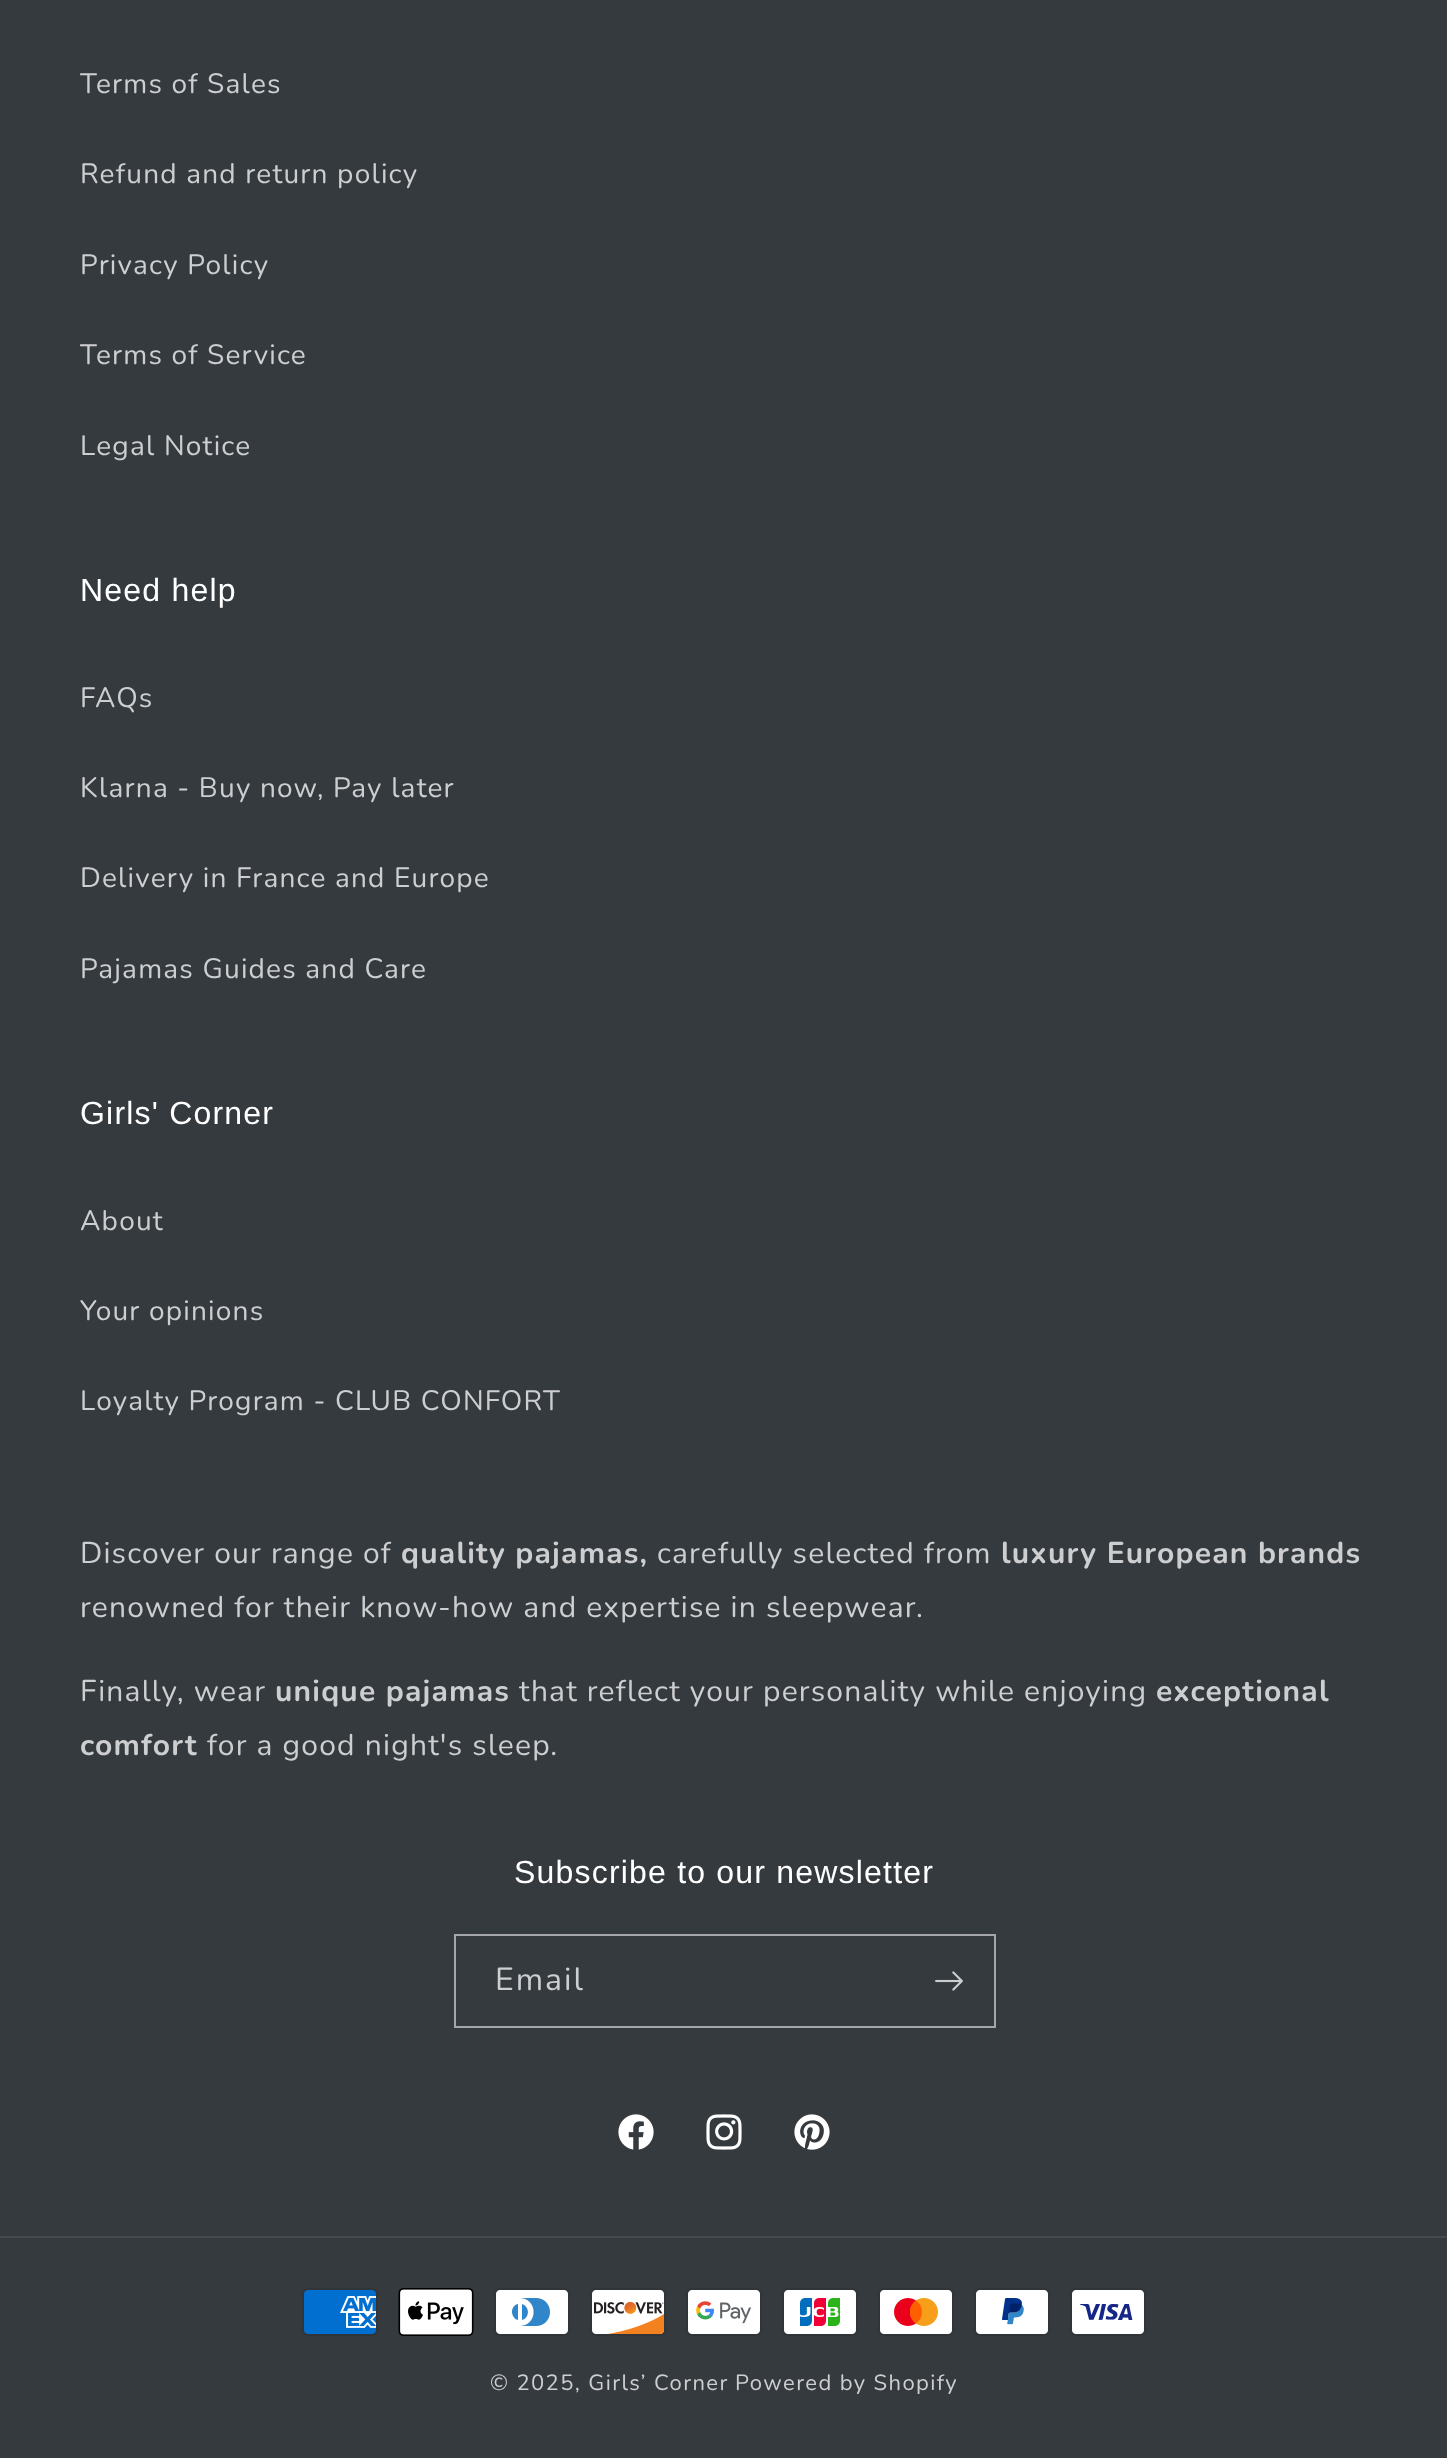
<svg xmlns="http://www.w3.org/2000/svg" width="1447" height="2458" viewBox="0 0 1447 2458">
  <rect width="100%" height="100%" fill="#353a3f"/>
  <text x="80" y="93" font-family="Nunito" font-size="28" letter-spacing="1.2" fill="#cdcecf">Terms of Sales</text>
  <text x="80" y="183" font-family="Nunito" font-size="28" letter-spacing="1.2" fill="#cdcecf">Refund and return policy</text>
  <text x="80" y="274" font-family="Nunito" font-size="28" letter-spacing="1.2" fill="#cdcecf">Privacy Policy</text>
  <text x="80" y="364" font-family="Nunito" font-size="28" letter-spacing="1.2" fill="#cdcecf">Terms of Service</text>
  <text x="80" y="455" font-family="Nunito" font-size="28" letter-spacing="1.2" fill="#cdcecf">Legal Notice</text>
  <text x="80" y="601" font-family="Arimo" font-size="32" letter-spacing="1.2" fill="#ffffff">Need help</text>
  <text x="80" y="707" font-family="Nunito" font-size="28" letter-spacing="1.2" fill="#cdcecf">FAQs</text>
  <text x="80" y="797" font-family="Nunito" font-size="28" letter-spacing="1.2" fill="#cdcecf">Klarna - Buy now, Pay later</text>
  <text x="80" y="887" font-family="Nunito" font-size="28" letter-spacing="1.2" fill="#cdcecf">Delivery in France and Europe</text>
  <text x="80" y="978" font-family="Nunito" font-size="28" letter-spacing="1.2" fill="#cdcecf">Pajamas Guides and Care</text>
  <text x="80" y="1124" font-family="Arimo" font-size="32" letter-spacing="1.2" fill="#ffffff">Girls' Corner</text>
  <text x="80" y="1230" font-family="Nunito" font-size="28" letter-spacing="1.2" fill="#cdcecf">About</text>
  <text x="80" y="1320" font-family="Nunito" font-size="28" letter-spacing="1.2" fill="#cdcecf">Your opinions</text>
  <text x="80" y="1410" font-family="Nunito" font-size="28" letter-spacing="1.2" fill="#cdcecf">Loyalty Program - CLUB CONFORT</text>
  <text x="80" y="1563" font-family="Nunito" font-size="30" letter-spacing="1.2" fill="#cdcecf">Discover our range of</text>
  <text x="401" y="1563" font-family="Nunito" font-size="30" font-weight="bold" letter-spacing="1.2" fill="#cdcecf">quality pajamas,</text>
  <text x="657" y="1563" font-family="Nunito" font-size="30" letter-spacing="1.2" fill="#cdcecf">carefully selected from</text>
  <text x="1001" y="1563" font-family="Nunito" font-size="30" font-weight="bold" letter-spacing="1.2" fill="#cdcecf">luxury European brands</text>
  <text x="80" y="1617" font-family="Nunito" font-size="30" letter-spacing="1.2" fill="#cdcecf">renowned for their know-how and expertise in sleepwear.</text>
  <text x="80" y="1701" font-family="Nunito" font-size="30" letter-spacing="1.2" fill="#cdcecf">Finally, wear</text>
  <text x="275" y="1701" font-family="Nunito" font-size="30" font-weight="bold" letter-spacing="1.2" fill="#cdcecf">unique pajamas</text>
  <text x="519" y="1701" font-family="Nunito" font-size="30" letter-spacing="1.2" fill="#cdcecf">that reflect your personality while enjoying</text>
  <text x="1156" y="1701" font-family="Nunito" font-size="30" font-weight="bold" letter-spacing="1.2" fill="#cdcecf">exceptional</text>
  <text x="80" y="1755" font-family="Nunito" font-size="30" font-weight="bold" letter-spacing="1.2" fill="#cdcecf">comfort</text>
  <text x="207" y="1755" font-family="Nunito" font-size="30" letter-spacing="1.2" fill="#cdcecf">for a good night's sleep.</text>
  <text x="514" y="1883" font-family="Arimo" font-size="32" letter-spacing="1.2" fill="#ffffff">Subscribe to our newsletter</text>
  <rect x="455" y="1935" width="540" height="92" fill="none" stroke="#a4a6a9" stroke-width="2"/>
  <text x="495" y="1990" font-family="Nunito" font-size="32" letter-spacing="2" fill="#cdcecf">Email</text>
  <image x="935" y="1971" width="28" height="20" href="img1.png"/>
  <image x="618" y="2114" width="36" height="36" href="img2.png"/>
  <image x="706" y="2114" width="36" height="36" href="img3.png"/>
  <image x="794" y="2114" width="36" height="36" href="img4.png"/>
  <rect x="0" y="2236" width="1447" height="2" fill="#454a4e"/>
  <image x="302" y="2288" width="76" height="48" href="img5.png"/>
  <image x="398" y="2288" width="76" height="48" href="img6.png"/>
  <image x="494" y="2288" width="76" height="48" href="img7.png"/>
  <image x="590" y="2288" width="76" height="48" href="img8.png"/>
  <image x="686" y="2288" width="76" height="48" href="img9.png"/>
  <image x="782" y="2288" width="76" height="48" href="img10.png"/>
  <image x="878" y="2288" width="76" height="48" href="img11.png"/>
  <image x="974" y="2288" width="76" height="48" href="img12.png"/>
  <image x="1070" y="2288" width="76" height="48" href="img13.png"/>
  <text x="490" y="2390" font-family="Nunito" font-size="22" letter-spacing="1.4" fill="#cdcecf">© 2025, Girls’ Corner</text>
  <text x="735" y="2390" font-family="Nunito" font-size="22" letter-spacing="1.4" fill="#cdcecf">Powered by Shopify</text>
</svg>
